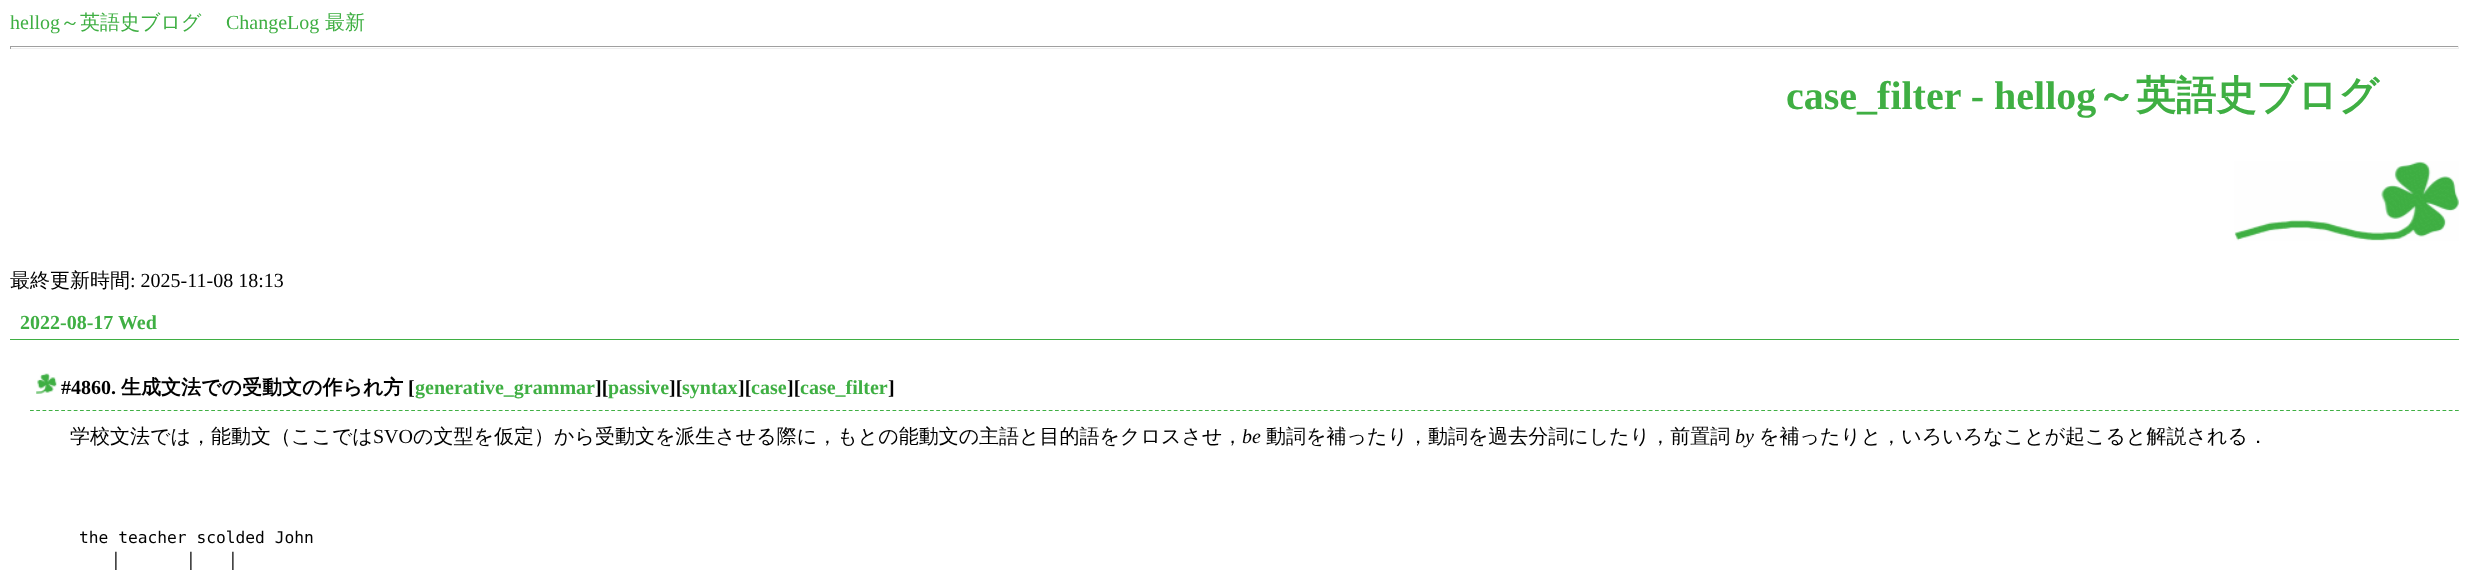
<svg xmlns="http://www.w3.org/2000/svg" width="2468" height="570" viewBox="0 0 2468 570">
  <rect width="100%" height="100%" fill="#ffffff"/>
  <text x="10" y="29" font-family="Liberation Serif" font-size="20" fill="#3faf43">hellog</text>
  <text x="60" y="29" font-family="WenQuanYi Zen Hei" font-size="20" font-weight="500" fill="#3faf43">～英語史ブログ</text>
  <text x="226" y="29" font-family="Liberation Serif" font-size="20" fill="#3faf43">ChangeLog</text>
  <text x="325" y="29" font-family="WenQuanYi Zen Hei" font-size="20" font-weight="500" fill="#3faf43">最新</text>
  <rect x="10" y="46" width="2449" height="1" fill="#9f9f9f"/>
  <rect x="2458" y="46" width="1" height="3" fill="#eeeeee"/>
  <rect x="10" y="48" width="2449" height="1" fill="#eeeeee"/>
  <rect x="10" y="46" width="1" height="3" fill="#9f9f9f"/>
  <image x="2234" y="161" width="225" height="80" href="img1.png"/>
  <text x="1786" y="109" font-family="Liberation Serif" font-size="40" font-weight="bold" fill="#3faf43">case_filter - hellog</text>
  <text x="2096" y="109" font-family="WenQuanYi Zen Hei" font-size="40" font-weight="bold" fill="#3faf43">～英語史ブログ</text>
  <text x="10" y="287" font-family="WenQuanYi Zen Hei" font-size="20" font-weight="500" fill="#000000">最終更新時間</text>
  <text x="130" y="287" font-family="Liberation Serif" font-size="20" fill="#000000">: 2025-11-08 18:13</text>
  <rect x="10" y="339" width="2449" height="1" fill="#3faf43"/>
  <text x="20" y="329" font-family="Liberation Serif" font-size="20" font-weight="bold" fill="#3faf43">2022-08-17 Wed</text>
  <path d="M30 410.5H2459" fill="none" stroke="#3faf43" stroke-width="1.2" stroke-dasharray="3.75 2.5"/>
  <image x="36" y="373" width="21" height="21" href="img2.png"/>
  <text x="61" y="394" font-family="Liberation Serif" font-size="20" font-weight="bold" fill="#000000">#4860.</text>
  <text x="121" y="394" font-family="WenQuanYi Zen Hei" font-size="20" font-weight="bold" fill="#000000">生成文法での受動文の作られ方</text>
  <text x="408" y="394" font-family="Liberation Serif" font-size="20" font-weight="bold" fill="#000000">[</text>
  <text x="415" y="394" font-family="Liberation Serif" font-size="20" font-weight="bold" fill="#3faf43">generative_grammar</text>
  <text x="595" y="394" font-family="Liberation Serif" font-size="20" font-weight="bold" fill="#000000">][</text>
  <text x="608" y="394" font-family="Liberation Serif" font-size="20" font-weight="bold" fill="#3faf43">passive</text>
  <text x="669" y="394" font-family="Liberation Serif" font-size="20" font-weight="bold" fill="#000000">][</text>
  <text x="682" y="394" font-family="Liberation Serif" font-size="20" font-weight="bold" fill="#3faf43">syntax</text>
  <text x="738" y="394" font-family="Liberation Serif" font-size="20" font-weight="bold" fill="#000000">][</text>
  <text x="751" y="394" font-family="Liberation Serif" font-size="20" font-weight="bold" fill="#3faf43">case</text>
  <text x="787" y="394" font-family="Liberation Serif" font-size="20" font-weight="bold" fill="#000000">][</text>
  <text x="800" y="394" font-family="Liberation Serif" font-size="20" font-weight="bold" fill="#3faf43">case_filter</text>
  <text x="888" y="394" font-family="Liberation Serif" font-size="20" font-weight="bold" fill="#000000">]</text>
  <text x="70" y="443" font-family="WenQuanYi Zen Hei" font-size="20" font-weight="500" fill="#000000">学校文法では，能動文（ここでは</text>
  <text x="373" y="443" font-family="Liberation Serif" font-size="20" fill="#000000">SVO</text>
  <text x="413" y="443" font-family="WenQuanYi Zen Hei" font-size="20" font-weight="500" fill="#000000">の文型を仮定）から受動文を派生させる際に，もとの能動文の主語と目的語をクロスさせ，</text>
  <text x="1242" y="443" font-family="Liberation Serif" font-size="20" font-style="italic" fill="#000000">be</text>
  <text x="1266" y="443" font-family="WenQuanYi Zen Hei" font-size="20" font-weight="500" fill="#000000">動詞を補ったり，動詞を過去分詞にしたり，前置詞</text>
  <text x="1735" y="443" font-family="Liberation Serif" font-size="20" font-style="italic" fill="#000000">by</text>
  <text x="1759" y="443" font-family="WenQuanYi Zen Hei" font-size="20" font-weight="500" fill="#000000">を補ったりと，いろいろなことが起こると解説される．</text>
  <text x="79" y="543" font-family="DejaVu Sans Mono" font-size="16.25" fill="#000000">the teacher scolded John</text>
  <text x="111" y="567" font-family="DejaVu Sans Mono" font-size="16.25" fill="#000000">│</text>
  <text x="186" y="567" font-family="DejaVu Sans Mono" font-size="16.25" fill="#000000">│</text>
  <text x="228" y="567" font-family="DejaVu Sans Mono" font-size="16.25" fill="#000000">│</text>
</svg>
